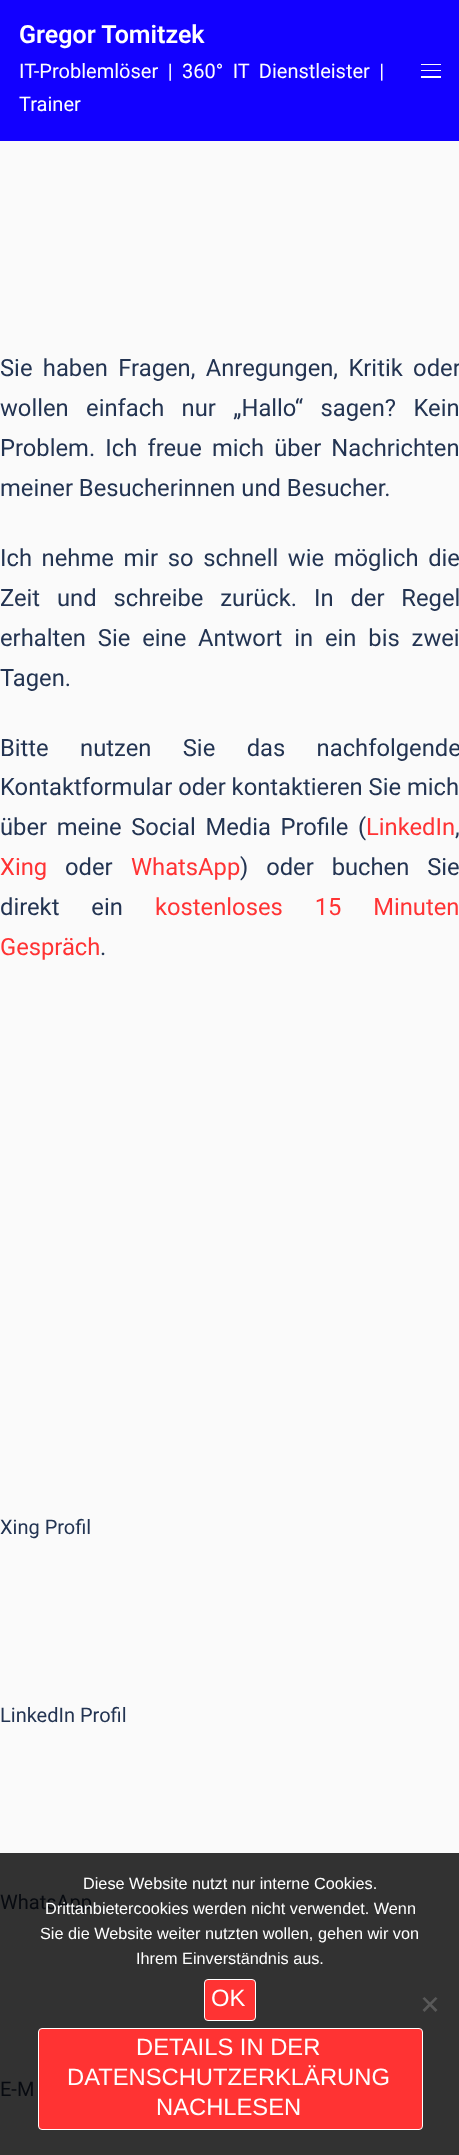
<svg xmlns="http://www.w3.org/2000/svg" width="459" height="2155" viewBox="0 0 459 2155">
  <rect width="100%" height="100%" fill="#fafafa"/>
  <rect x="0" y="1853" width="459" height="302" fill="#323232"/>
  <rect x="0" y="0" width="459" height="141" fill="#1200ff"/>
  <text x="19" y="43" font-family="Roboto" font-size="25" font-weight="600" fill="#ffffff">Gregor Tomitzek</text>
  <text x="19" y="78" word-spacing="4.5" font-family="Roboto" font-size="20" fill="#ffffff">IT-Problemlöser | 360° IT Dienstleister |</text>
  <text x="19" y="111" font-family="Roboto" font-size="20" fill="#ffffff">Trainer</text>
  <rect x="421" y="64" width="20" height="1" fill="#ffffff"/>
  <rect x="421" y="70" width="20" height="1" fill="#ffffff"/>
  <rect x="421" y="76" width="20" height="2" fill="#ffffff"/>
  <text x="0" y="376" word-spacing="4.5" font-family="Roboto" font-size="23.75" fill="#233452">Sie haben Fragen, Anregungen, Kritik oder</text>
  <text x="0" y="416" word-spacing="11.5" font-family="Roboto" font-size="23.75" fill="#233452">wollen einfach nur „Hallo“ sagen? Kein</text>
  <text x="0" y="456" word-spacing="4.25" font-family="Roboto" font-size="23.75" fill="#233452">Problem. Ich freue mich über Nachrichten</text>
  <text x="0" y="496" font-family="Roboto" font-size="23.75" fill="#233452">meiner Besucherinnen und Besucher.</text>
  <text x="0" y="566" word-spacing="3.75" font-family="Roboto" font-size="23.75" fill="#233452">Ich nehme mir so schnell wie möglich die</text>
  <text x="0" y="606" word-spacing="11" font-family="Roboto" font-size="23.75" fill="#233452">Zeit und schreibe zurück. In der Regel</text>
  <text x="0" y="646" word-spacing="6" font-family="Roboto" font-size="23.75" fill="#233452">erhalten Sie eine Antwort in ein bis zwei</text>
  <text x="0" y="686" font-family="Roboto" font-size="23.75" fill="#233452">Tagen.</text>
  <text x="0" y="756" word-spacing="25.5" font-family="Roboto" font-size="23.75" fill="#233452">Bitte nutzen Sie das nachfolgende</text>
  <text x="0" y="795" font-family="Roboto" font-size="23.75" fill="#233452">Kontaktformular oder kontaktieren Sie mich</text>
  <text x="0" y="835" word-spacing="3.75" font-family="Roboto" font-size="23.75" fill="#233452">über meine Social Media Profile (</text>
  <text x="366" y="835" font-family="Roboto" font-size="23.75" fill="#ff3334">LinkedIn</text>
  <text x="455" y="835" font-family="Roboto" font-size="23.75" fill="#233452">,</text>
  <text x="0" y="875" font-family="Roboto" font-size="23.75" fill="#ff3334">Xing</text>
  <text x="65" y="875" font-family="Roboto" font-size="23.75" fill="#233452">oder</text>
  <text x="131" y="875" font-family="Roboto" font-size="23.75" fill="#ff3334">WhatsApp</text>
  <text x="240" y="875" word-spacing="12" font-family="Roboto" font-size="23.75" fill="#233452">) oder buchen Sie</text>
  <text x="0" y="915" word-spacing="26" font-family="Roboto" font-size="23.75" fill="#233452">direkt ein</text>
  <text x="155" y="915" word-spacing="26" font-family="Roboto" font-size="23.75" fill="#ff3334">kostenloses 15 Minuten</text>
  <text x="0" y="955" font-family="Roboto" font-size="23.75" fill="#ff3334">Gespräch</text>
  <text x="100" y="955" font-family="Roboto" font-size="23.75" fill="#233452">.</text>
  <text x="0" y="1534" font-family="Roboto" font-size="20" fill="#233452">Xing Profil</text>
  <text x="0" y="1722" font-family="Roboto" font-size="20" fill="#233452">LinkedIn Profil</text>
  <text x="0" y="1909" font-family="Roboto" font-size="20" fill="#070a10">WhatsApp</text>
  <text x="0" y="2096" font-family="Roboto" font-size="20" fill="#070a10">E-M</text>
  <text x="83" y="1889" font-family="Liberation Sans" font-size="16.25" fill="#ffffff">Diese Website nutzt nur interne Cookies.</text>
  <text x="45" y="1914" font-family="Liberation Sans" font-size="16.25" fill="#ffffff">Drittanbietercookies werden nicht verwendet. Wenn</text>
  <text x="40" y="1939" font-family="Liberation Sans" font-size="16.25" fill="#ffffff">Sie die Website weiter nutzten wollen, gehen wir von</text>
  <text x="136" y="1964" font-family="Liberation Sans" font-size="16.25" fill="#ffffff">Ihrem Einverständnis aus.</text>
  <rect x="204.5" y="1979.5" width="51" height="41" rx="3.5" fill="#ff3333" stroke="#ffffff"/>
  <text x="211" y="2006" font-family="Liberation Sans" font-size="23.75" fill="#ffffff">OK</text>
  <rect x="38.5" y="2028.5" width="384" height="101" rx="3.5" fill="#ff3333" stroke="#ffffff"/>
  <text x="136" y="2055" font-family="Liberation Sans" font-size="23.75" fill="#ffffff">DETAILS IN DER</text>
  <text x="67" y="2085" font-family="Liberation Sans" font-size="23.75" fill="#ffffff">DATENSCHUTZERKLÄRUNG</text>
  <text x="156" y="2115" font-family="Liberation Sans" font-size="23.75" fill="#ffffff">NACHLESEN</text>
  <path d="M435.5 1997L437.5 1998.5L424.5 2012L422.5 2010Z" fill="#595959"/>
  <path d="M422.5 1998.5L424.5 1997L437.5 2010L435.5 2012Z" fill="#595959"/>
</svg>
